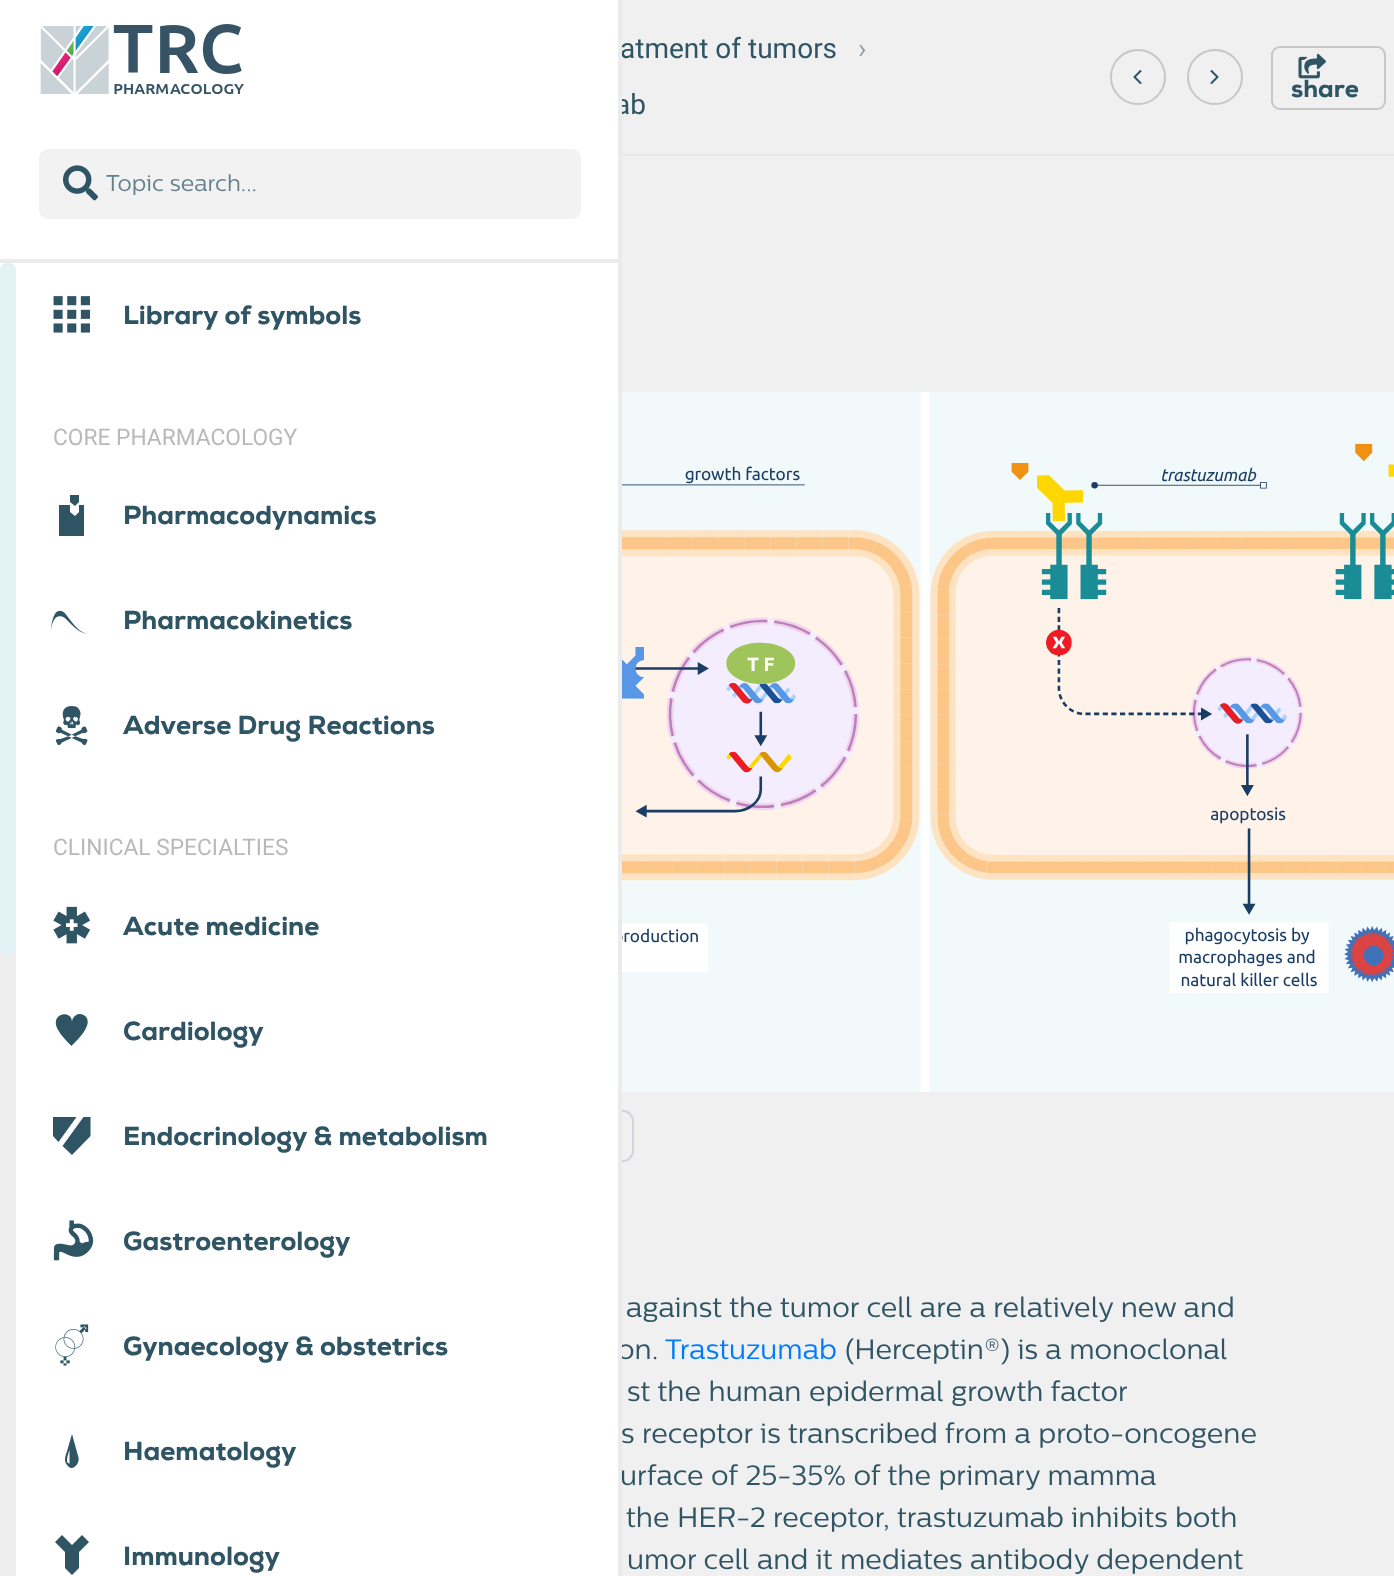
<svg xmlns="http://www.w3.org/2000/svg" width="1394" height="1576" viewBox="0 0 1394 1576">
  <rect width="100%" height="100%" fill="#f0f0f0"/>
  <text x="615" y="114" font-family="Roboto" font-size="28" fill="#2f5464">ab</text>
  <rect x="444" y="1111" width="189" height="50" rx="10" fill="none" stroke="#d1d5db" stroke-width="2"/>
  <rect x="0" y="0" width="618" height="1576" fill="#ffffff"/>
  <text x="620" y="58" font-family="Roboto" font-size="28" fill="#2f5464">atment of tumors</text>
  <text x="617" y="1359" font-family="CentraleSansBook" font-size="28" fill="#2f5464">on.</text>
  <rect x="618" y="0" width="4" height="1576" fill="#ebebec"/>
  <rect x="0" y="259" width="618" height="4" fill="#ebebec"/>
  <image x="40" y="24" width="204" height="70" href="img1.png"/>
  <rect x="39" y="149" width="542" height="70" rx="9" fill="#f2f2f2"/>
  <image x="63" y="165" width="35" height="36" href="img2.png"/>
  <text x="106" y="191" font-family="CentraleSansBook" font-size="22.75" fill="#65818d">Topic search...</text>
  <rect x="0" y="263" width="16" height="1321" rx="8" fill="#eeeeee"/>
  <rect x="0" y="263" width="16" height="693" rx="7" fill="#e3f3f5"/>
  <image x="53" y="296" width="37" height="37" href="img3.png"/>
  <text x="123" y="324" font-family="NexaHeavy" font-size="26.25" fill="#2f5464">Library of symbols</text>
  <text x="53" y="445" font-family="Roboto" font-size="22.75" fill="#b9b9b9">CORE PHARMACOLOGY</text>
  <path d="M79 505V512L75 516L70 512V505H59V536H84V505ZM75 506L79 502V495H70V502Z" fill="#2f5464"/>
  <text x="123" y="524" font-family="NexaHeavy" font-size="26.25" fill="#2f5464">Pharmacodynamics</text>
  <image x="50" y="610" width="39" height="24" href="img4.png"/>
  <text x="123" y="629" font-family="NexaHeavy" font-size="26.25" fill="#2f5464">Pharmacokinetics</text>
  <image x="55" y="706" width="33" height="40" href="img5.png"/>
  <text x="123" y="734" font-family="NexaHeavy" font-size="26.25" fill="#2f5464">Adverse Drug Reactions</text>
  <text x="53" y="855" font-family="Roboto" font-size="22.75" fill="#b9b9b9">CLINICAL SPECIALTIES</text>
  <image x="53" y="906" width="38" height="38" href="img6.png"/>
  <text x="123" y="935" font-family="NexaHeavy" font-size="26.25" fill="#2f5464">Acute medicine</text>
  <path d="M79.5 1014C75.5 1014 72 1018 72 1022C72 1009 49.5 1013 57.5 1029C61 1035.5 66.5 1041 71.5 1046C77 1040.5 92 1026.5 86.5 1017.5C85 1015.5 82.5 1014 79.5 1014Z" fill="#2f5464"/>
  <text x="123" y="1040" font-family="NexaHeavy" font-size="26.25" fill="#2f5464">Cardiology</text>
  <path d="M76.5 1117H53V1136L58.5 1142ZM62.5 1146L72 1155L90.5 1136V1117H83.5Z" fill="#2f5464"/>
  <text x="123" y="1145" font-family="NexaHeavy" font-size="26.25" fill="#2f5464">Endocrinology &amp; metabolism</text>
  <image x="53" y="1220" width="41" height="41" href="img7.png"/>
  <text x="123" y="1250" font-family="NexaHeavy" font-size="26.25" fill="#2f5464">Gastroenterology</text>
  <image x="55" y="1324" width="34" height="42" href="img8.png"/>
  <text x="123" y="1355" font-family="NexaHeavy" font-size="26.25" fill="#2f5464">Gynaecology &amp; obstetrics</text>
  <path d="M78.5 1457.5L72 1434L67.5 1449.5C66 1455 63 1460 67 1465C72 1472.5 80 1464 78.5 1457.5ZM69.5 1463.5C64.5 1463.5 69 1451.5 69.5 1450Z" fill="#2f5464"/>
  <text x="123" y="1460" font-family="NexaHeavy" font-size="26.25" fill="#2f5464">Haematology</text>
  <path d="M82 1535L72 1545L62 1535L55 1542L65 1552V1568L72 1575L79 1568V1552L89 1542Z" fill="#2f5464"/>
  <text x="123" y="1565" font-family="NexaHeavy" font-size="26.25" fill="#2f5464">Immunology</text>
  <rect x="622" y="154" width="772" height="2" fill="#e5e7eb"/>
  <text x="858" y="58" font-family="Roboto" font-size="28" fill="#94a1ab">›</text>
  <circle cx="1138" cy="77" r="27" fill="none" stroke="#c6c7c9" stroke-width="2"/>
  <path d="M1140.5 83L1134.5 77L1140.5 71" fill="none" stroke="#2f5464" stroke-width="2" stroke-linecap="round" stroke-linejoin="round"/>
  <circle cx="1215" cy="77" r="27" fill="none" stroke="#c6c7c9" stroke-width="2"/>
  <path d="M1211.5 83L1217.5 77L1211.5 71" fill="none" stroke="#2f5464" stroke-width="2" stroke-linecap="round" stroke-linejoin="round"/>
  <rect x="1272" y="47" width="113" height="62" rx="8" fill="none" stroke="#c6c7c9" stroke-width="2"/>
  <image x="1298" y="53" width="28" height="26" href="img9.png"/>
  <text x="1291" y="97" font-family="NexaHeavy" font-size="24.5" fill="#2f5464">share</text>
  <image x="622" y="392" width="772" height="700" href="img10.png"/>
  <text x="626" y="1317" font-family="CentraleSansBook" font-size="28" fill="#2f5464">against the tumor cell are a relatively new and</text>
  <text x="665" y="1359" font-family="CentraleSansBook" font-size="28" fill="#007bff">Trastuzumab</text>
  <text x="845" y="1359" font-family="CentraleSansBook" font-size="28" fill="#2f5464">(Herceptin®) is a monoclonal</text>
  <text x="627" y="1401" font-family="CentraleSansBook" font-size="28" fill="#2f5464">st the human epidermal growth factor</text>
  <text x="621" y="1443" font-family="CentraleSansBook" font-size="28" fill="#2f5464">s receptor is transcribed from a proto-oncogene</text>
  <text x="620" y="1485" font-family="CentraleSansBook" font-size="28" fill="#2f5464">urface of 25-35% of the primary mamma</text>
  <text x="626" y="1527" font-family="CentraleSansBook" font-size="28" fill="#2f5464">the HER-2 receptor, trastuzumab inhibits both</text>
  <text x="627" y="1569" font-family="CentraleSansBook" font-size="28" fill="#2f5464">umor cell and it mediates antibody dependent</text>
</svg>
